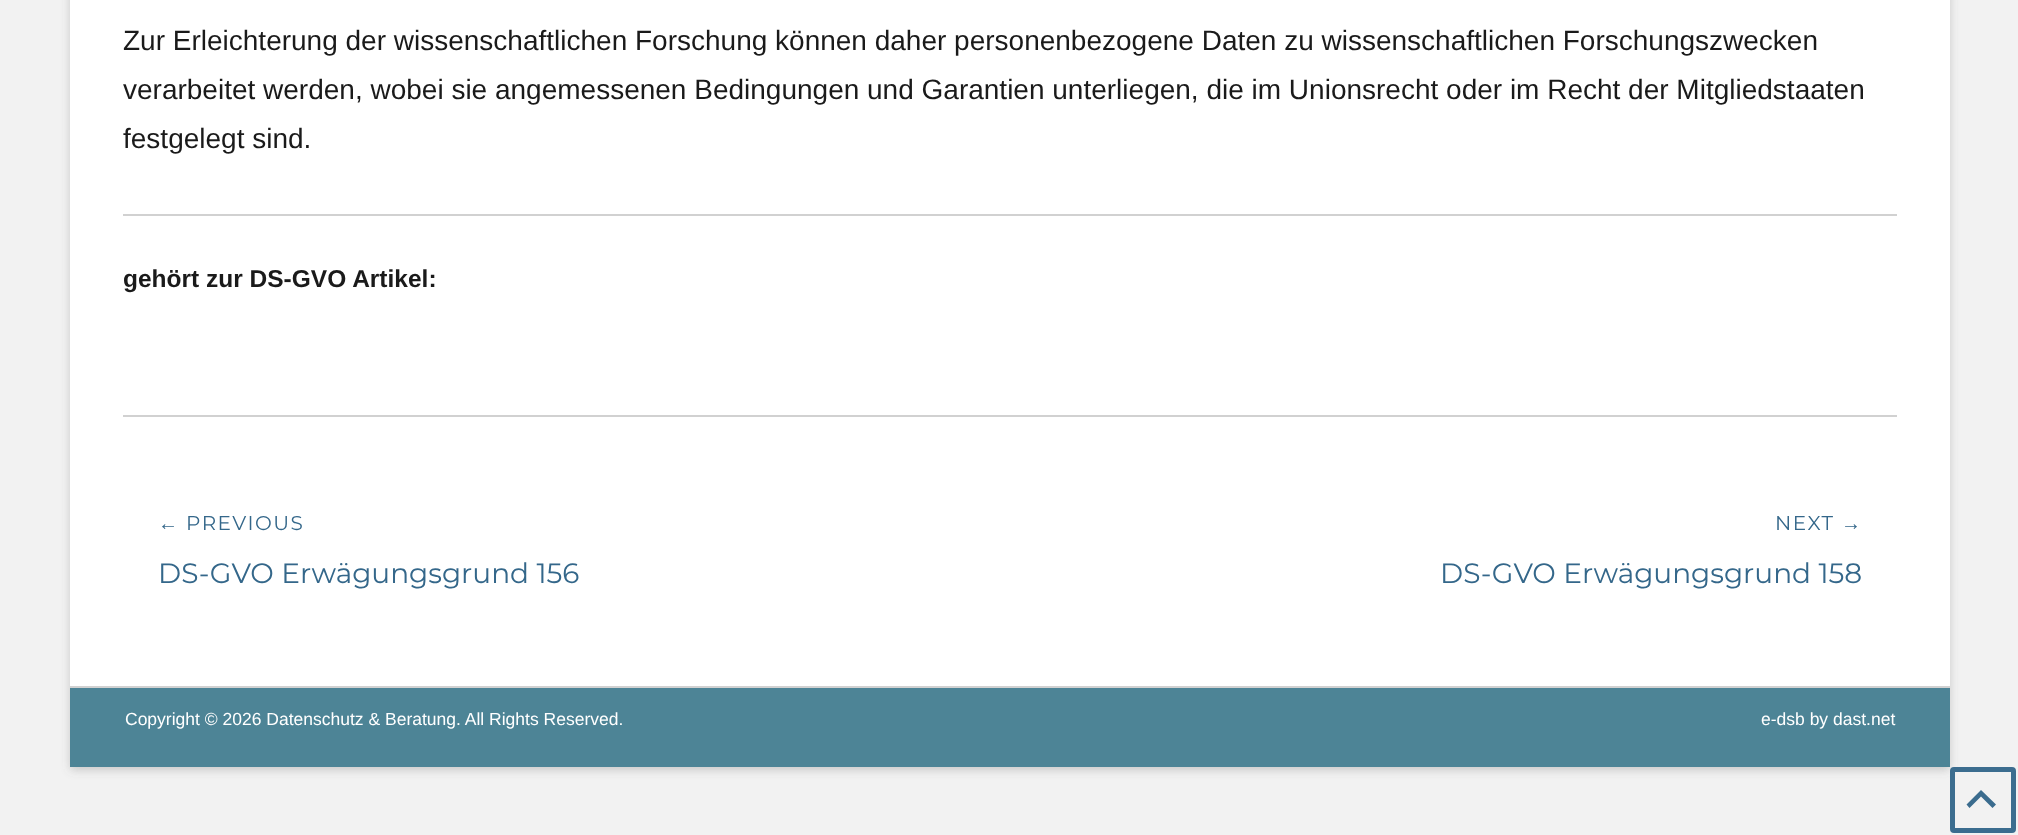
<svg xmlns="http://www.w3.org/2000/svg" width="2018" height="835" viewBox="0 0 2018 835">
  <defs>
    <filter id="blur1" x="-50%" y="-200%" width="200%" height="500%"><feGaussianBlur stdDeviation="5"/></filter>
  </defs>
  <rect width="100%" height="100%" fill="#f2f2f2"/>
  <rect x="70" y="-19" width="1880" height="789" rx="4" fill="#646464" fill-opacity="0.3" filter="url(#blur1)"/>
  <rect x="70" y="0" width="1880" height="686" fill="#ffffff"/>
  <rect x="70" y="686" width="1880" height="2" fill="#d1d1d1"/>
  <rect x="123" y="415" width="1774" height="2" fill="#d1d1d1"/>
  <text x="123" y="50" font-family="Liberation Sans" font-size="28" fill="#1a1a1a">Zur Erleichterung der wissenschaftlichen Forschung können daher personenbezogene Daten zu wissenschaftlichen Forschungszwecken</text>
  <text x="123" y="99" font-family="Liberation Sans" font-size="28" fill="#1a1a1a">verarbeitet werden, wobei sie angemessenen Bedingungen und Garantien unterliegen, die im Unionsrecht oder im Recht der Mitgliedstaaten</text>
  <text x="123" y="148" font-family="Liberation Sans" font-size="28" fill="#1a1a1a">festgelegt sind.</text>
  <rect x="123" y="214" width="1774" height="2" fill="#d1d1d1"/>
  <text x="123" y="287" font-family="Liberation Sans" font-size="24.5" font-weight="bold" fill="#1a1a1a">gehört zur DS-GVO Artikel:</text>
  <text x="158" y="530" font-family="Liberation Sans" font-size="20" letter-spacing="1.5" fill="#34678a">←</text>
  <text x="186" y="530" font-family="Montserrat" font-size="20" font-weight="100" letter-spacing="1.5" fill="#34678a">PREVIOUS</text>
  <text x="158" y="583" font-family="Montserrat" font-size="28" font-weight="100" fill="#34678a">DS-GVO Erwägungsgrund 156</text>
  <text x="1775" y="530" font-family="Montserrat" font-size="20" font-weight="100" letter-spacing="1.5" fill="#34678a">NEXT</text>
  <text x="1841" y="530" font-family="Liberation Sans" font-size="20" letter-spacing="1.5" fill="#34678a">→</text>
  <text x="1440" y="583" font-family="Montserrat" font-size="28" font-weight="100" fill="#34678a">DS-GVO Erwägungsgrund 158</text>
  <rect x="70" y="688" width="1880" height="79" fill="#4d8496"/>
  <text x="125" y="725" font-family="Liberation Sans" font-size="17.5" fill="#ffffff">Copyright © 2026 Datenschutz &amp; Beratung. All Rights Reserved.</text>
  <text x="1761" y="725" font-family="Liberation Sans" font-size="17.5" fill="#ffffff">e-dsb by dast.net</text>
  <rect x="1952.5" y="769.5" width="61" height="61" rx="1.5" fill="none" stroke="#34678a" stroke-opacity="0.96" stroke-width="5"/>
  <path d="M1992.5 808L1981 796.5L1969.5 808L1966.5 804.5L1981 790L1996 804.5Z" fill="#3b6c8e"/>
</svg>
